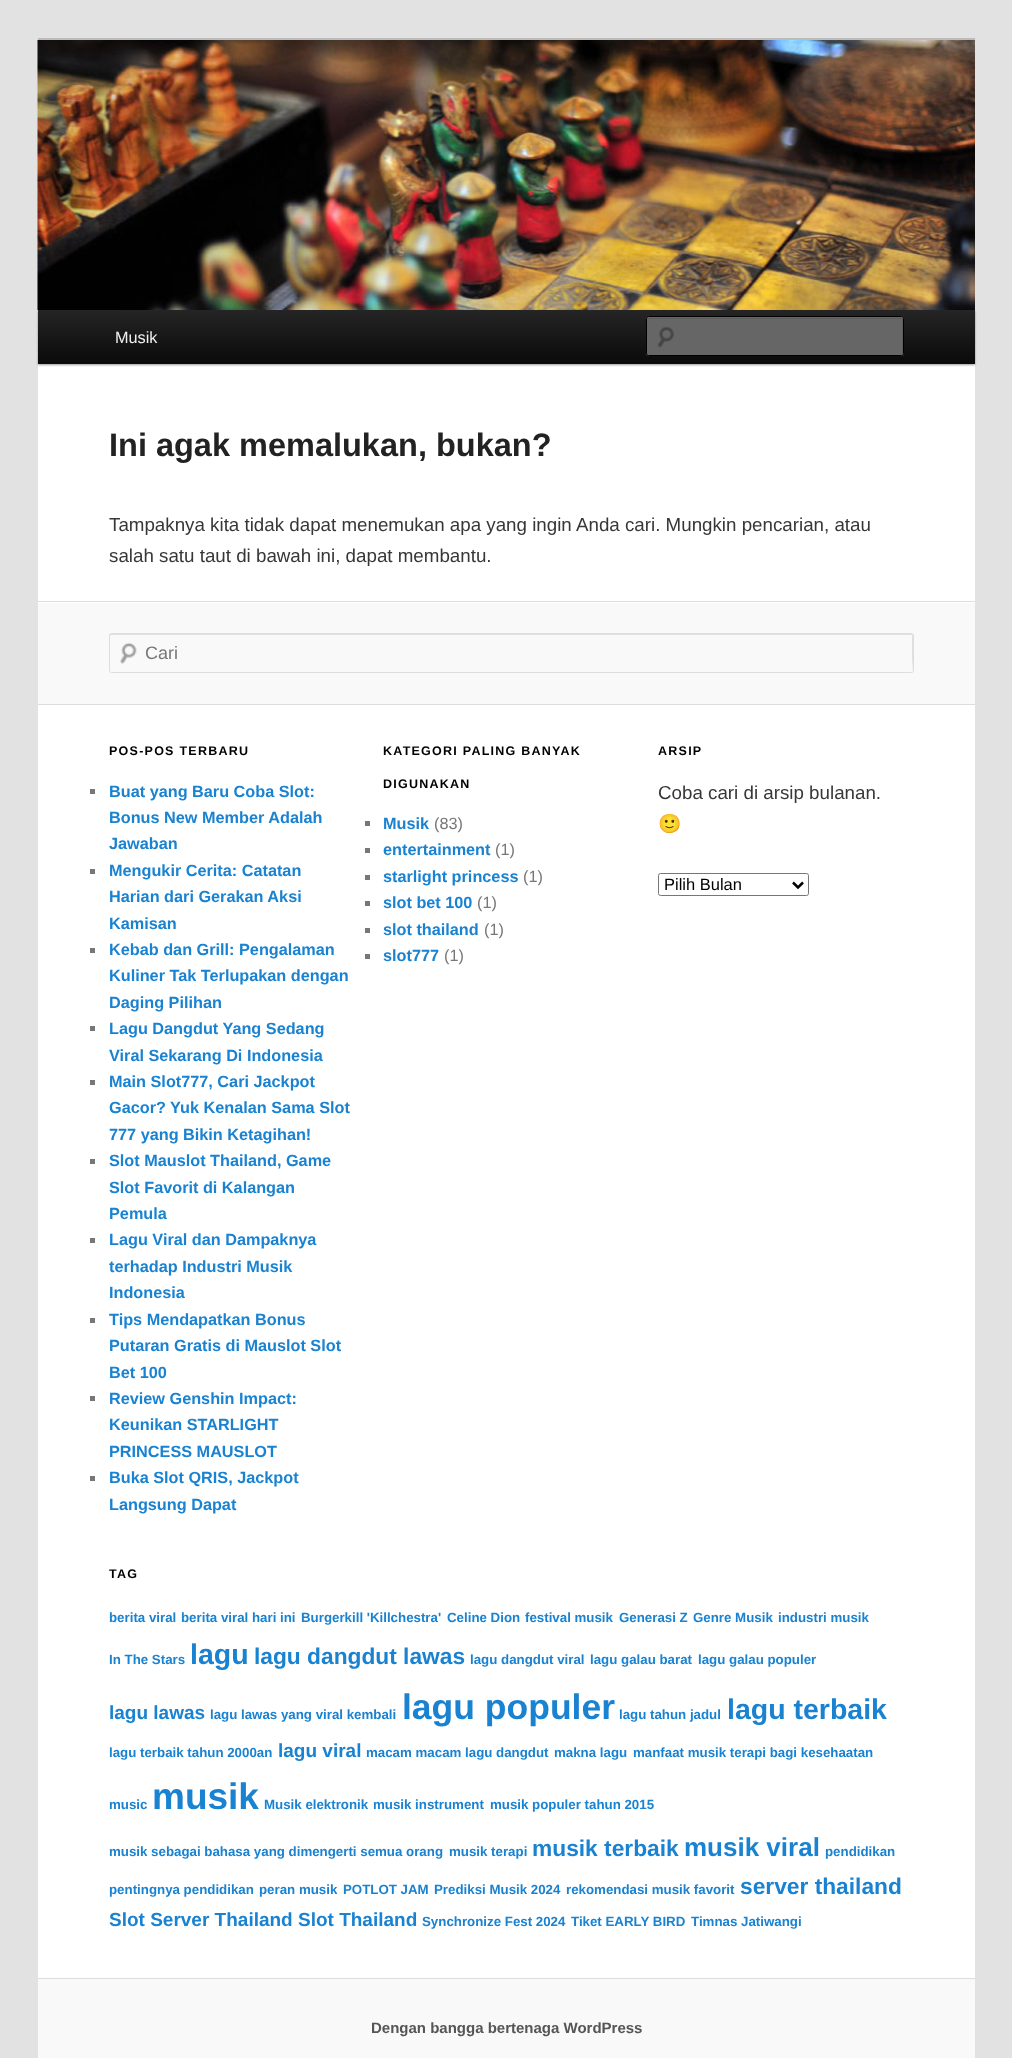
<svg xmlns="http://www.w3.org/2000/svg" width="1012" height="2058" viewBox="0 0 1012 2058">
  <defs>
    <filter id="blur1" x="-50%" y="-200%" width="200%" height="500%"><feGaussianBlur stdDeviation="1"/></filter>
    <linearGradient id="g1" gradientUnits="userSpaceOnUse" x1="506" y1="310" x2="506" y2="364"><stop offset="0" stop-color="#252525"/><stop offset="1" stop-color="#0a0a0a"/></linearGradient>
  </defs>
  <rect width="100%" height="100%" fill="#e2e2e2"/>
  <rect x="38" y="364" width="937" height="1614" fill="#ffffff"/>
  <rect x="38" y="38" width="937" height="2" fill="#bbbbbb"/>
  <rect x="38" y="311" width="937" height="54" fill="#000000" fill-opacity="0.4" filter="url(#blur1)"/>
  <image x="37" y="40" width="938" height="270" href="img1.png"/>
  <rect x="38" y="310" width="937" height="54" fill="url(#g1)"/>
  <text x="115" y="343" font-family="Liberation Sans" font-size="16.25" fill="#eeeeee">Musik</text>
  <rect x="646" y="316" width="258" height="40" rx="2.5" fill="#666666"/>
  <image x="657" y="327" width="17" height="21" href="img2.png"/>
  <path d="M649 319H901C902 319 902 319 902 320V355L903 354V319L902 318H648V320C648 319 648 319 649 319Z" fill="#5c5c5c"/>
  <rect x="646.5" y="316.5" width="257" height="39" rx="2" fill="none" stroke="#000000"/>
  <text x="109" y="456" font-family="Liberation Sans" font-size="32.5" font-weight="bold" fill="#222222">Ini agak memalukan, bukan?</text>
  <text x="109" y="531" font-family="Liberation Sans" font-size="18.75" fill="#373737">Tampaknya kita tidak dapat menemukan apa yang ingin Anda cari. Mungkin pencarian, atau</text>
  <text x="109" y="562" font-family="Liberation Sans" font-size="18.75" fill="#373737">salah satu taut di bawah ini, dapat membantu.</text>
  <rect x="38" y="603" width="937" height="101" fill="#f9f9f9"/>
  <rect x="38" y="601" width="937" height="1" fill="#dddddd"/>
  <rect x="38" y="704" width="937" height="1" fill="#dddddd"/>
  <image x="120" y="642" width="17" height="22" href="img3.png"/>
  <path d="M111 635H912V660L913 671C913 670 913 639 913 635L912 634H110V636Z" fill="#e0e0e0"/>
  <rect x="109.5" y="633.5" width="804" height="39" rx="2" fill="none" stroke="#dddddd"/>
  <text x="145" y="659" font-family="Liberation Sans" font-size="18" fill="#777777">Cari</text>
  <text x="109" y="755" font-family="Liberation Sans" font-size="12.5" font-weight="bold" letter-spacing="1.25" fill="#000000">POS-POS TERBARU</text>
  <rect x="90" y="789" width="5" height="5" fill="#777777"/>
  <text x="109" y="797" font-family="Liberation Sans" font-size="16.25" font-weight="bold" fill="#1982d1">Buat yang Baru Coba Slot:</text>
  <text x="109" y="823" font-family="Liberation Sans" font-size="16.25" font-weight="bold" fill="#1982d1">Bonus New Member Adalah</text>
  <text x="109" y="849" font-family="Liberation Sans" font-size="16.25" font-weight="bold" fill="#1982d1">Jawaban</text>
  <rect x="90" y="869" width="5" height="5" fill="#777777"/>
  <text x="109" y="876" font-family="Liberation Sans" font-size="16.25" font-weight="bold" fill="#1982d1">Mengukir Cerita: Catatan</text>
  <text x="109" y="902" font-family="Liberation Sans" font-size="16.25" font-weight="bold" fill="#1982d1">Harian dari Gerakan Aksi</text>
  <text x="109" y="929" font-family="Liberation Sans" font-size="16.25" font-weight="bold" fill="#1982d1">Kamisan</text>
  <rect x="90" y="948" width="5" height="5" fill="#777777"/>
  <text x="109" y="955" font-family="Liberation Sans" font-size="16.25" font-weight="bold" fill="#1982d1">Kebab dan Grill: Pengalaman</text>
  <text x="109" y="981" font-family="Liberation Sans" font-size="16.25" font-weight="bold" fill="#1982d1">Kuliner Tak Terlupakan dengan</text>
  <text x="109" y="1008" font-family="Liberation Sans" font-size="16.25" font-weight="bold" fill="#1982d1">Daging Pilihan</text>
  <rect x="90" y="1026" width="5" height="5" fill="#777777"/>
  <text x="109" y="1034" font-family="Liberation Sans" font-size="16.25" font-weight="bold" fill="#1982d1">Lagu Dangdut Yang Sedang</text>
  <text x="109" y="1061" font-family="Liberation Sans" font-size="16.25" font-weight="bold" fill="#1982d1">Viral Sekarang Di Indonesia</text>
  <rect x="90" y="1080" width="5" height="5" fill="#777777"/>
  <text x="109" y="1087" font-family="Liberation Sans" font-size="16.25" font-weight="bold" fill="#1982d1">Main Slot777, Cari Jackpot</text>
  <text x="109" y="1113" font-family="Liberation Sans" font-size="16.25" font-weight="bold" fill="#1982d1">Gacor? Yuk Kenalan Sama Slot</text>
  <text x="109" y="1140" font-family="Liberation Sans" font-size="16.25" font-weight="bold" fill="#1982d1">777 yang Bikin Ketagihan!</text>
  <rect x="90" y="1159" width="5" height="5" fill="#777777"/>
  <text x="109" y="1166" font-family="Liberation Sans" font-size="16.25" font-weight="bold" fill="#1982d1">Slot Mauslot Thailand, Game</text>
  <text x="109" y="1193" font-family="Liberation Sans" font-size="16.25" font-weight="bold" fill="#1982d1">Slot Favorit di Kalangan</text>
  <text x="109" y="1219" font-family="Liberation Sans" font-size="16.25" font-weight="bold" fill="#1982d1">Pemula</text>
  <rect x="90" y="1238" width="5" height="5" fill="#777777"/>
  <text x="109" y="1245" font-family="Liberation Sans" font-size="16.25" font-weight="bold" fill="#1982d1">Lagu Viral dan Dampaknya</text>
  <text x="109" y="1272" font-family="Liberation Sans" font-size="16.25" font-weight="bold" fill="#1982d1">terhadap Industri Musik</text>
  <text x="109" y="1298" font-family="Liberation Sans" font-size="16.25" font-weight="bold" fill="#1982d1">Indonesia</text>
  <rect x="90" y="1318" width="5" height="5" fill="#777777"/>
  <text x="109" y="1325" font-family="Liberation Sans" font-size="16.25" font-weight="bold" fill="#1982d1">Tips Mendapatkan Bonus</text>
  <text x="109" y="1351" font-family="Liberation Sans" font-size="16.25" font-weight="bold" fill="#1982d1">Putaran Gratis di Mauslot Slot</text>
  <text x="109" y="1378" font-family="Liberation Sans" font-size="16.25" font-weight="bold" fill="#1982d1">Bet 100</text>
  <rect x="90" y="1396" width="5" height="5" fill="#777777"/>
  <text x="109" y="1404" font-family="Liberation Sans" font-size="16.25" font-weight="bold" fill="#1982d1">Review Genshin Impact:</text>
  <text x="109" y="1430" font-family="Liberation Sans" font-size="16.25" font-weight="bold" fill="#1982d1">Keunikan STARLIGHT</text>
  <text x="109" y="1457" font-family="Liberation Sans" font-size="16.25" font-weight="bold" fill="#1982d1">PRINCESS MAUSLOT</text>
  <rect x="90" y="1476" width="5" height="5" fill="#777777"/>
  <text x="109" y="1483" font-family="Liberation Sans" font-size="16.25" font-weight="bold" fill="#1982d1">Buka Slot QRIS, Jackpot</text>
  <text x="109" y="1510" font-family="Liberation Sans" font-size="16.25" font-weight="bold" fill="#1982d1">Langsung Dapat</text>
  <text x="383" y="755" font-family="Liberation Sans" font-size="12.5" font-weight="bold" letter-spacing="1.25" fill="#000000">KATEGORI PALING BANYAK</text>
  <text x="383" y="788" font-family="Liberation Sans" font-size="12.5" font-weight="bold" letter-spacing="1.25" fill="#000000">DIGUNAKAN</text>
  <rect x="365" y="821" width="5" height="5" fill="#777777"/>
  <text x="383" y="829" font-family="Liberation Sans" font-size="16.25" font-weight="bold" fill="#1982d1">Musik</text>
  <text x="434" y="829" font-family="Liberation Sans" font-size="16.25" fill="#777777">(83)</text>
  <rect x="365" y="848" width="5" height="5" fill="#777777"/>
  <text x="383" y="855" font-family="Liberation Sans" font-size="16.25" font-weight="bold" fill="#1982d1">entertainment</text>
  <text x="495" y="855" font-family="Liberation Sans" font-size="16.25" fill="#777777">(1)</text>
  <rect x="365" y="875" width="5" height="5" fill="#777777"/>
  <text x="383" y="882" font-family="Liberation Sans" font-size="16.25" font-weight="bold" fill="#1982d1">starlight princess</text>
  <text x="523" y="882" font-family="Liberation Sans" font-size="16.25" fill="#777777">(1)</text>
  <rect x="365" y="901" width="5" height="5" fill="#777777"/>
  <text x="383" y="908" font-family="Liberation Sans" font-size="16.25" font-weight="bold" fill="#1982d1">slot bet 100</text>
  <text x="477" y="908" font-family="Liberation Sans" font-size="16.25" fill="#777777">(1)</text>
  <rect x="365" y="928" width="5" height="5" fill="#777777"/>
  <text x="383" y="935" font-family="Liberation Sans" font-size="16.25" font-weight="bold" fill="#1982d1">slot thailand</text>
  <text x="484" y="935" font-family="Liberation Sans" font-size="16.25" fill="#777777">(1)</text>
  <rect x="365" y="954" width="5" height="5" fill="#777777"/>
  <text x="383" y="961" font-family="Liberation Sans" font-size="16.25" font-weight="bold" fill="#1982d1">slot777</text>
  <text x="444" y="961" font-family="Liberation Sans" font-size="16.25" fill="#777777">(1)</text>
  <text x="658" y="755" font-family="Liberation Sans" font-size="12.5" font-weight="bold" letter-spacing="1.25" fill="#000000">ARSIP</text>
  <text x="658" y="799" font-family="Liberation Sans" font-size="18.75" fill="#373737">Coba cari di arsip bulanan.</text>
  <text x="658" y="830" font-family="Noto Color Emoji" font-size="18.75" fill="#373737">🙂</text>
  <rect x="658.5" y="873.5" width="150" height="22" rx="2" fill="none" stroke="#767676"/>
  <path d="M793 882.5L798 887.5L803 882.5" fill="none" stroke="#000000" stroke-width="2.5"/>
  <text x="664" y="890" font-family="Liberation Sans" font-size="16.5" fill="#000000">Pilih Bulan</text>
  <text x="109" y="1578" font-family="Liberation Sans" font-size="12.5" font-weight="bold" letter-spacing="1.25" fill="#000000">TAG</text>
  <text x="109" y="1622" font-family="Liberation Sans" font-size="13.3" font-weight="bold" fill="#1982d1">berita viral</text>
  <text x="181" y="1622" font-family="Liberation Sans" font-size="13.3" font-weight="bold" fill="#1982d1">berita viral hari ini</text>
  <text x="301" y="1622" font-family="Liberation Sans" font-size="13.3" font-weight="bold" fill="#1982d1">Burgerkill 'Killchestra'</text>
  <text x="447" y="1622" font-family="Liberation Sans" font-size="13.3" font-weight="bold" fill="#1982d1">Celine Dion</text>
  <text x="525" y="1622" font-family="Liberation Sans" font-size="13.3" font-weight="bold" fill="#1982d1">festival musik</text>
  <text x="619" y="1622" font-family="Liberation Sans" font-size="13.3" font-weight="bold" fill="#1982d1">Generasi Z</text>
  <text x="693" y="1622" font-family="Liberation Sans" font-size="13.3" font-weight="bold" fill="#1982d1">Genre Musik</text>
  <text x="778" y="1622" font-family="Liberation Sans" font-size="13.3" font-weight="bold" fill="#1982d1">industri musik</text>
  <text x="109" y="1664" font-family="Liberation Sans" font-size="13.3" font-weight="bold" fill="#1982d1">In The Stars</text>
  <text x="190" y="1664" font-family="Liberation Sans" font-size="28.5" font-weight="bold" fill="#1982d1">lagu</text>
  <text x="254" y="1664" font-family="Liberation Sans" font-size="22.75" font-weight="bold" fill="#1982d1">lagu dangdut lawas</text>
  <text x="470" y="1664" font-family="Liberation Sans" font-size="13.3" font-weight="bold" fill="#1982d1">lagu dangdut viral</text>
  <text x="590" y="1664" font-family="Liberation Sans" font-size="13.3" font-weight="bold" fill="#1982d1">lagu galau barat</text>
  <text x="698" y="1664" font-family="Liberation Sans" font-size="13.3" font-weight="bold" fill="#1982d1">lagu galau populer</text>
  <text x="109" y="1719" font-family="Liberation Sans" font-size="19" font-weight="bold" fill="#1982d1">lagu lawas</text>
  <text x="210" y="1719" font-family="Liberation Sans" font-size="13.3" font-weight="bold" fill="#1982d1">lagu lawas yang viral kembali</text>
  <text x="402" y="1719" font-family="Liberation Sans" font-size="35.5" font-weight="bold" fill="#1982d1">lagu populer</text>
  <text x="619" y="1719" font-family="Liberation Sans" font-size="13.3" font-weight="bold" fill="#1982d1">lagu tahun jadul</text>
  <text x="727" y="1719" font-family="Liberation Sans" font-size="28.5" font-weight="bold" fill="#1982d1">lagu terbaik</text>
  <text x="109" y="1757" font-family="Liberation Sans" font-size="13.3" font-weight="bold" fill="#1982d1">lagu terbaik tahun 2000an</text>
  <text x="278" y="1757" font-family="Liberation Sans" font-size="19" font-weight="bold" fill="#1982d1">lagu viral</text>
  <text x="366" y="1757" font-family="Liberation Sans" font-size="13.3" font-weight="bold" fill="#1982d1">macam macam lagu dangdut</text>
  <text x="554" y="1757" font-family="Liberation Sans" font-size="13.3" font-weight="bold" fill="#1982d1">makna lagu</text>
  <text x="633" y="1757" font-family="Liberation Sans" font-size="13.3" font-weight="bold" fill="#1982d1">manfaat musik terapi bagi kesehaatan</text>
  <text x="109" y="1809" font-family="Liberation Sans" font-size="13.3" font-weight="bold" fill="#1982d1">music</text>
  <text x="152" y="1809" font-family="Liberation Sans" font-size="37" font-weight="bold" fill="#1982d1">musik</text>
  <text x="264" y="1809" font-family="Liberation Sans" font-size="13.3" font-weight="bold" fill="#1982d1">Musik elektronik</text>
  <text x="373" y="1809" font-family="Liberation Sans" font-size="13.3" font-weight="bold" fill="#1982d1">musik instrument</text>
  <text x="490" y="1809" font-family="Liberation Sans" font-size="13.3" font-weight="bold" fill="#1982d1">musik populer tahun 2015</text>
  <text x="109" y="1856" font-family="Liberation Sans" font-size="13.3" font-weight="bold" fill="#1982d1">musik sebagai bahasa yang dimengerti semua orang</text>
  <text x="449" y="1856" font-family="Liberation Sans" font-size="13.3" font-weight="bold" fill="#1982d1">musik terapi</text>
  <text x="532" y="1856" font-family="Liberation Sans" font-size="22.75" font-weight="bold" fill="#1982d1">musik terbaik</text>
  <text x="684" y="1856" font-family="Liberation Sans" font-size="26" font-weight="bold" fill="#1982d1">musik viral</text>
  <text x="825" y="1856" font-family="Liberation Sans" font-size="13.3" font-weight="bold" fill="#1982d1">pendidikan</text>
  <text x="109" y="1894" font-family="Liberation Sans" font-size="13.3" font-weight="bold" fill="#1982d1">pentingnya pendidikan</text>
  <text x="259" y="1894" font-family="Liberation Sans" font-size="13.3" font-weight="bold" fill="#1982d1">peran musik</text>
  <text x="343" y="1894" font-family="Liberation Sans" font-size="13.3" font-weight="bold" fill="#1982d1">POTLOT JAM</text>
  <text x="434" y="1894" font-family="Liberation Sans" font-size="13.3" font-weight="bold" fill="#1982d1">Prediksi Musik 2024</text>
  <text x="566" y="1894" font-family="Liberation Sans" font-size="13.3" font-weight="bold" fill="#1982d1">rekomendasi musik favorit</text>
  <text x="740" y="1894" font-family="Liberation Sans" font-size="22.75" font-weight="bold" fill="#1982d1">server thailand</text>
  <text x="109" y="1926" font-family="Liberation Sans" font-size="19" font-weight="bold" fill="#1982d1">Slot Server Thailand Slot Thailand</text>
  <text x="422" y="1926" font-family="Liberation Sans" font-size="13.3" font-weight="bold" fill="#1982d1">Synchronize Fest 2024</text>
  <text x="571" y="1926" font-family="Liberation Sans" font-size="13.3" font-weight="bold" fill="#1982d1">Tiket EARLY BIRD</text>
  <text x="691" y="1926" font-family="Liberation Sans" font-size="13.3" font-weight="bold" fill="#1982d1">Timnas Jatiwangi</text>
  <rect x="38" y="1979" width="937" height="79" fill="#f9f9f9"/>
  <rect x="38" y="1978" width="937" height="1" fill="#dddddd"/>
  <text x="371" y="2033" font-family="Liberation Sans" font-size="15" font-weight="bold" fill="#555555">Dengan bangga bertenaga WordPress</text>
</svg>
